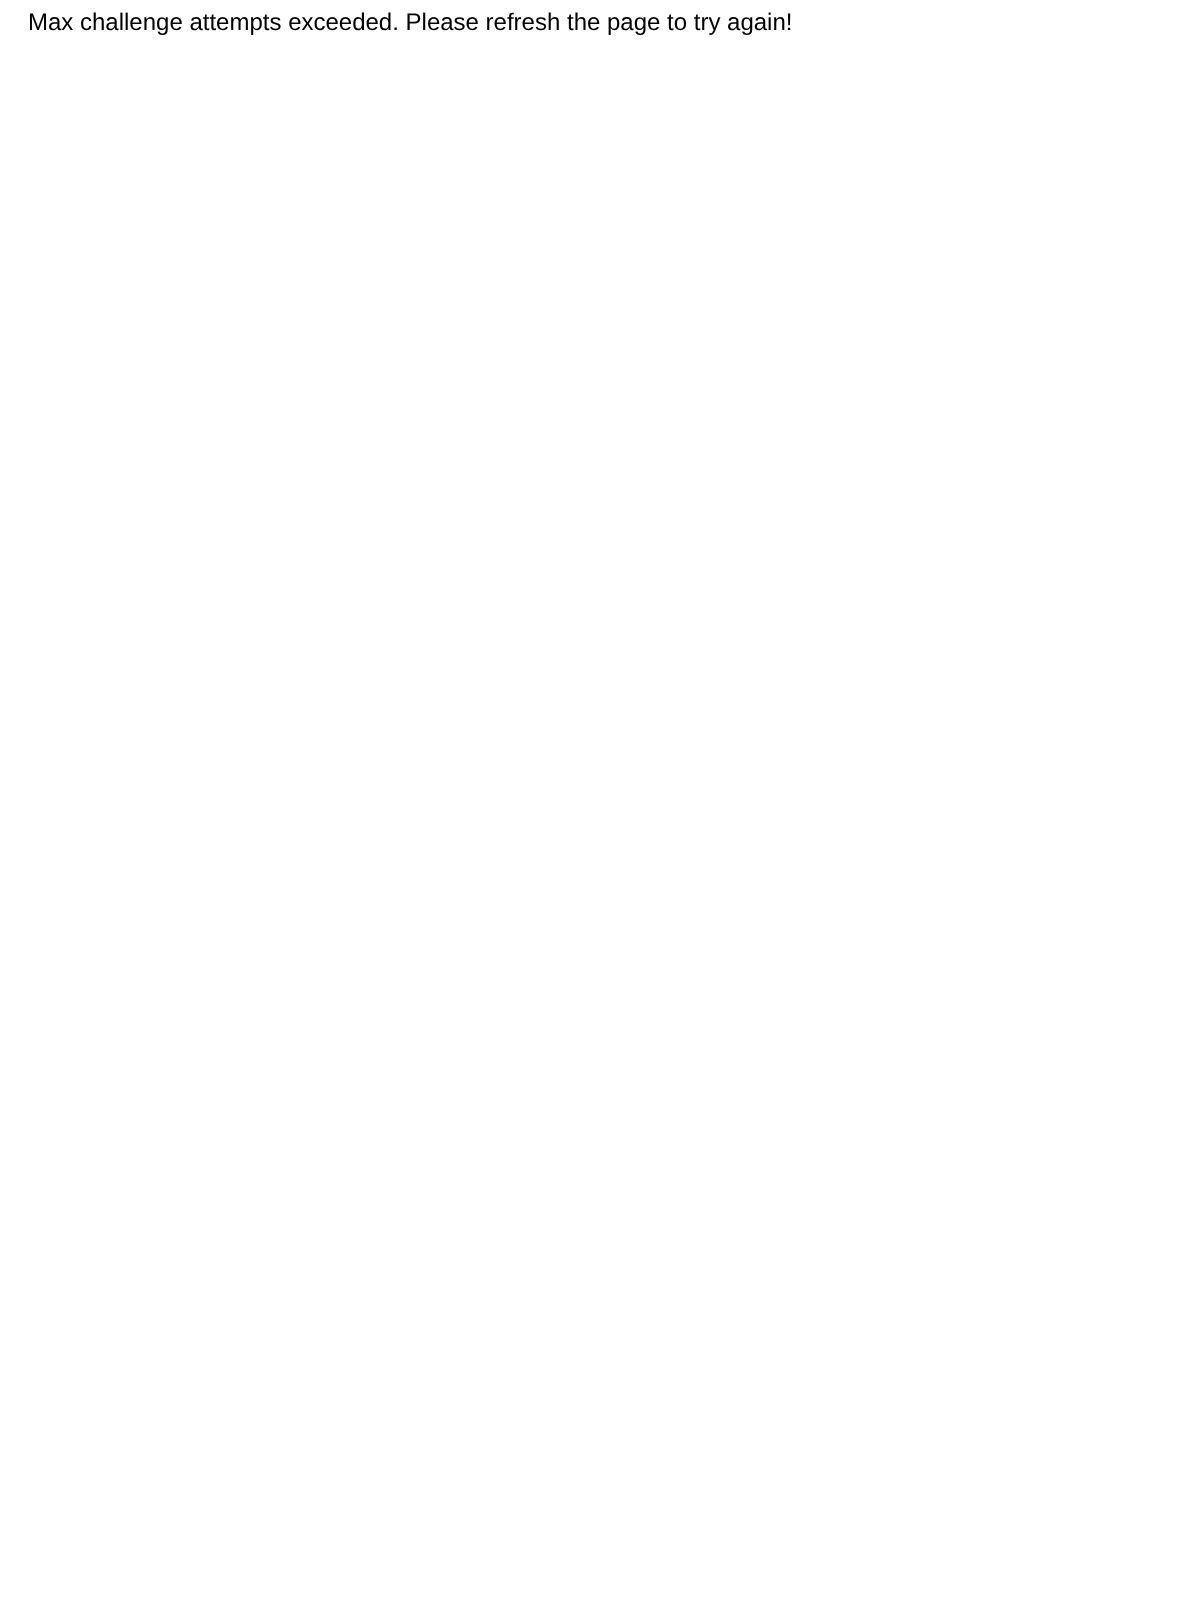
<svg xmlns="http://www.w3.org/2000/svg" width="1203" height="1604" viewBox="0 0 1203 1604">
  <rect width="100%" height="100%" fill="#ffffff"/>
  <text x="28" y="30" font-family="Liberation Sans" font-size="24" fill="#000000">Max challenge attempts exceeded. Please refresh the page to try again!</text>
</svg>
